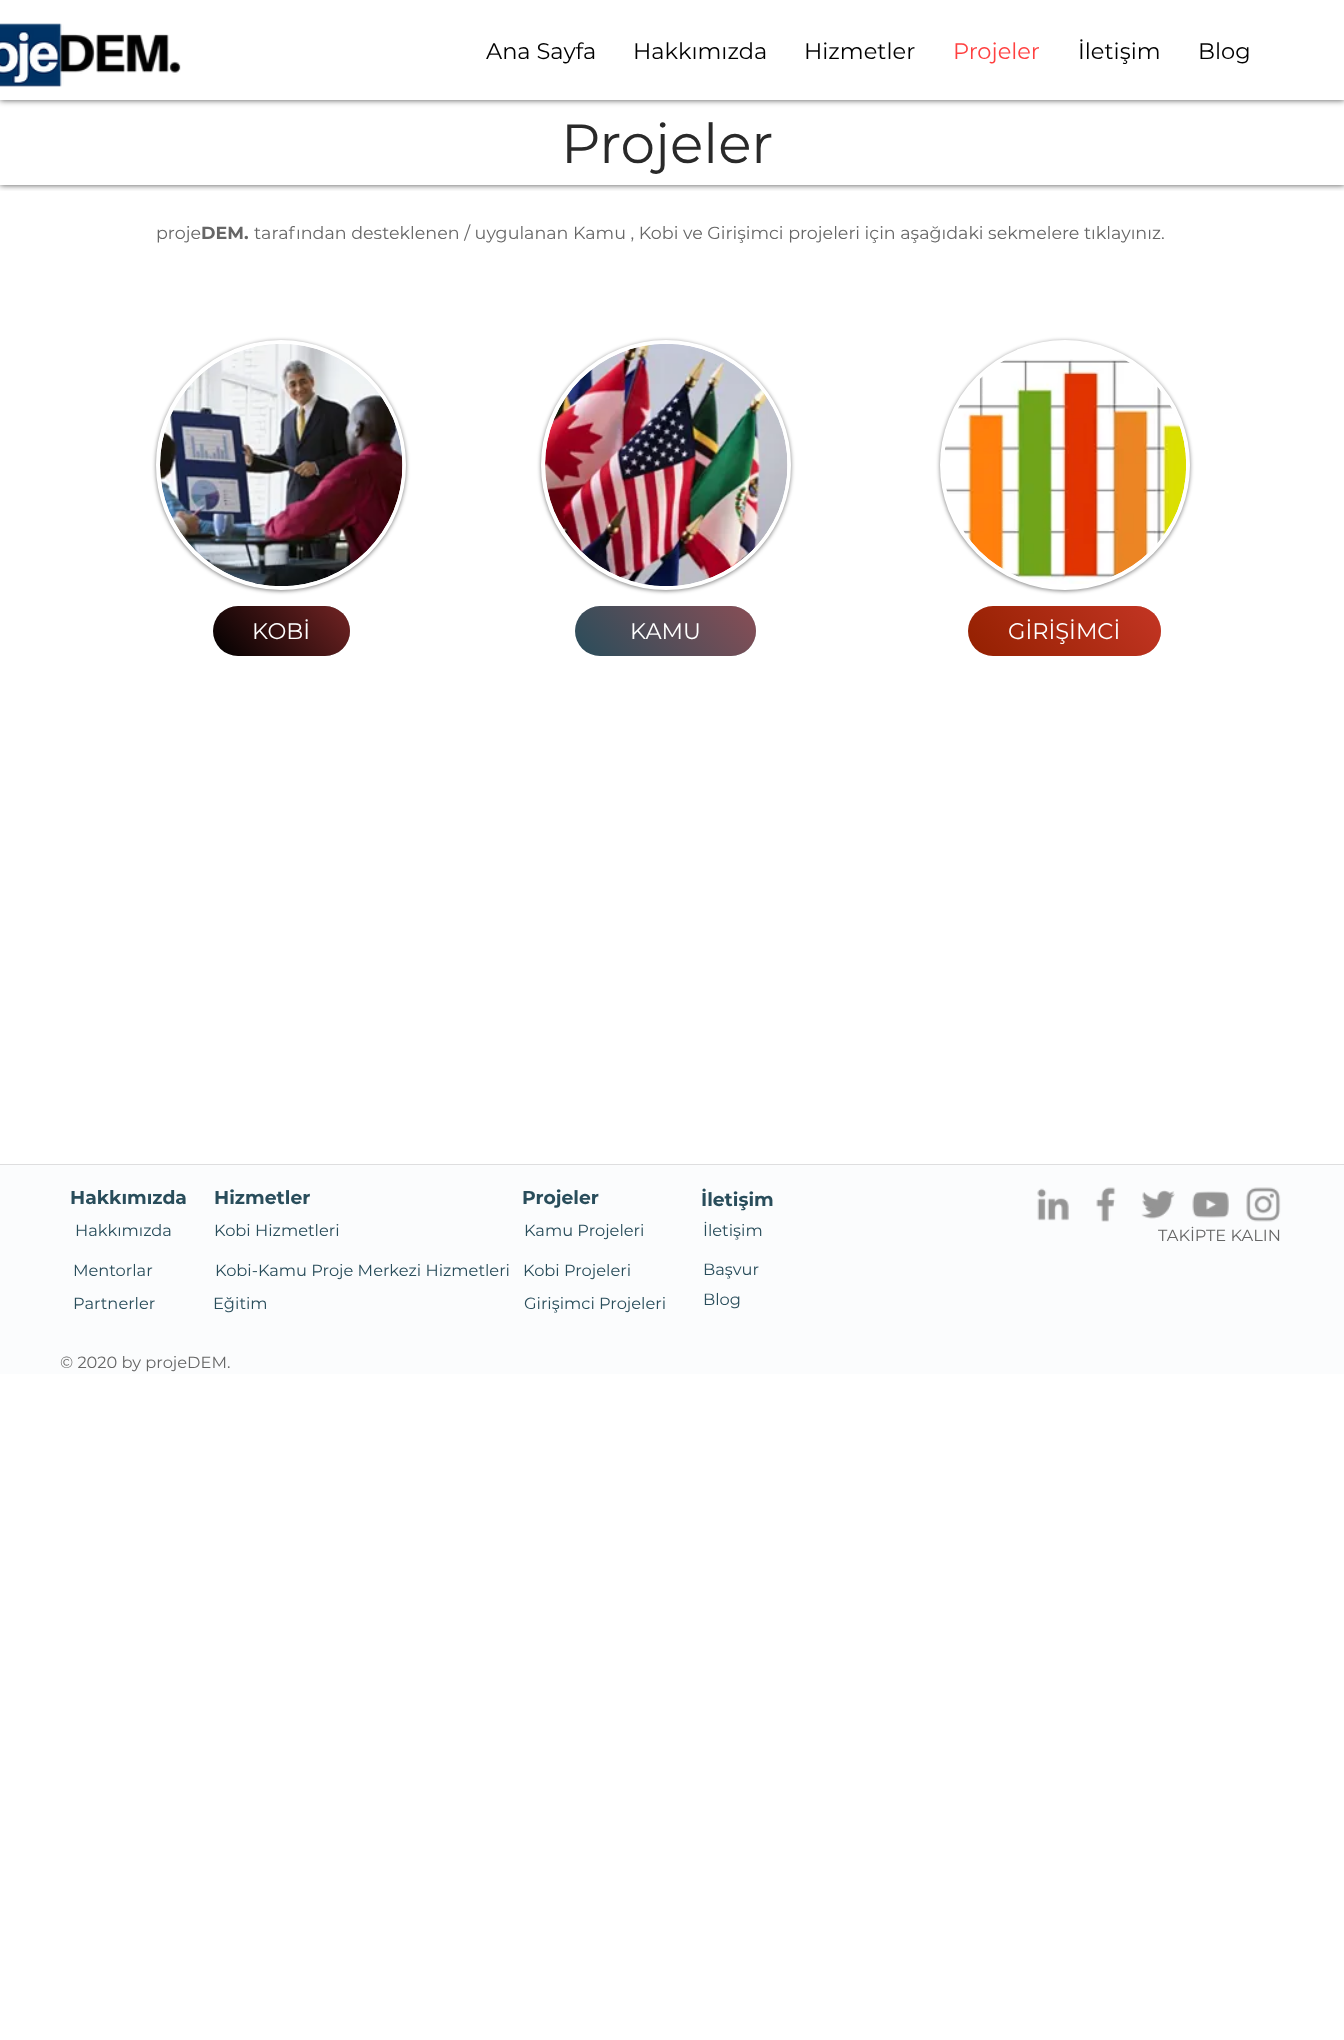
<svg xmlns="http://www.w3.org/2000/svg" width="1344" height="2040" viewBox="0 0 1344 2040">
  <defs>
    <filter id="blur1" x="-50%" y="-200%" width="200%" height="500%"><feGaussianBlur stdDeviation="3"/></filter>
    <clipPath id="clip1"><rect x="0" y="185" width="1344" height="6"/></clipPath>
    <filter id="blur2" x="-50%" y="-200%" width="200%" height="500%"><feGaussianBlur stdDeviation="2"/></filter>
    <linearGradient id="g1" gradientUnits="userSpaceOnUse" x1="333" y1="586" x2="230" y2="676"><stop offset="0" stop-color="#ff4f4f" stop-opacity="0.45"/><stop offset="1" stop-color="#ff4f4f" stop-opacity="0"/></linearGradient>
    <linearGradient id="g2" gradientUnits="userSpaceOnUse" x1="730" y1="576" x2="602" y2="687"><stop offset="0" stop-color="#ff4f4f" stop-opacity="0.45"/><stop offset="1" stop-color="#ff4f4f" stop-opacity="0"/></linearGradient>
    <linearGradient id="g3" gradientUnits="userSpaceOnUse" x1="1132" y1="573" x2="997" y2="690"><stop offset="0" stop-color="#ff4f4f" stop-opacity="0.45"/><stop offset="1" stop-color="#ff4f4f" stop-opacity="0"/></linearGradient>
  </defs>
  <rect width="100%" height="100%" fill="#ffffff"/>
  <rect x="0" y="0" width="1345" height="100" fill="#000000" fill-opacity="0.7" filter="url(#blur1)"/>
  <g clip-path="url(#clip1)">
    <rect x="0" y="100" width="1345" height="85" fill="#000000" fill-opacity="0.7" filter="url(#blur1)"/>
  </g>
  <rect x="0" y="0" width="1344" height="100" fill="#ffffff"/>
  <image x="0" y="23" width="181" height="64" href="img1.png"/>
  <text x="486" y="59" font-family="Montserrat" font-size="22.5" fill="#000000">Ana Sayfa</text>
  <text x="633" y="59" font-family="Montserrat" font-size="22.5" fill="#000000">Hakkımızda</text>
  <text x="804" y="59" font-family="Montserrat" font-size="22.5" fill="#000000">Hizmetler</text>
  <text x="953" y="59" font-family="Montserrat" font-size="22.5" fill="#ff4040">Projeler</text>
  <text x="1078" y="59" font-family="Montserrat" font-size="22.5" fill="#000000">İletişim</text>
  <text x="1198" y="59" font-family="Montserrat" font-size="22.5" fill="#000000">Blog</text>
  <text x="561" y="163" font-family="Montserrat" font-size="55" fill="#292929">Projeler</text>
  <text x="156" y="239" font-family="Montserrat" font-size="17.5" fill="#666666">proje</text>
  <text x="201" y="239" font-family="Montserrat" font-size="17.5" font-weight="bold" fill="#666666">DEM.</text>
  <text x="254" y="239" font-family="Montserrat" font-size="17.5" fill="#666666">tarafından desteklenen / uygulanan Kamu , Kobi ve Girişimci projeleri için aşağıdaki sekmelere tıklayınız.</text>
  <rect x="156" y="341" width="250" height="250" rx="125" fill="#000000" fill-opacity="0.5" filter="url(#blur2)"/>
  <circle cx="281" cy="465" r="123" fill="#ffffff" stroke="#ffffff" stroke-width="4"/>
  <image x="160" y="344" width="243" height="242" href="img2.png"/>
  <rect x="541" y="341" width="250" height="250" rx="125" fill="#000000" fill-opacity="0.5" filter="url(#blur2)"/>
  <circle cx="666" cy="465" r="123" fill="#ffffff" stroke="#ffffff" stroke-width="4"/>
  <image x="545" y="344" width="243" height="242" href="img3.png"/>
  <rect x="940" y="341" width="250" height="250" rx="125" fill="#000000" fill-opacity="0.5" filter="url(#blur2)"/>
  <circle cx="1065" cy="465" r="123" fill="#ffffff" stroke="#ffffff" stroke-width="4"/>
  <image x="945" y="359" width="241" height="225" href="img4.png"/>
  <rect x="213" y="606" width="137" height="50" rx="25" fill="#000000"/>
  <rect x="213" y="606" width="137" height="50" rx="25" fill="url(#g1)"/>
  <text x="252" y="639" font-family="Montserrat" font-size="22.5" fill="#ffffff">KOBİ</text>
  <rect x="575" y="606" width="181" height="50" rx="25" fill="#294d5b"/>
  <rect x="575" y="606" width="181" height="50" rx="25" fill="url(#g2)"/>
  <text x="630" y="639" font-family="Montserrat" font-size="22.5" fill="#ffffff">KAMU</text>
  <rect x="968" y="606" width="193" height="50" rx="25" fill="#932000"/>
  <rect x="968" y="606" width="193" height="50" rx="25" fill="url(#g3)"/>
  <text x="1008" y="639" font-family="Montserrat" font-size="22.5" fill="#ffffff">GİRİŞİMCİ</text>
  <rect x="0" y="1165" width="1344" height="209" fill="#fbfcfd"/>
  <rect x="0" y="1164" width="1344" height="1" fill="#dededf"/>
  <text x="70" y="1204" font-family="Montserrat" font-size="18.75" font-weight="bold" fill="#294d5b">Hakkımızda</text>
  <text x="214" y="1204" font-family="Montserrat" font-size="18.75" font-weight="bold" fill="#294d5b">Hizmetler</text>
  <text x="522" y="1204" font-family="Montserrat" font-size="18.75" font-weight="bold" fill="#294d5b">Projeler</text>
  <text x="701" y="1206" font-family="Montserrat" font-size="18.75" font-weight="bold" fill="#294d5b">İletişim</text>
  <image x="1037" y="1188" width="32" height="33" href="img5.png"/>
  <image x="1096" y="1187" width="20" height="35" href="img6.png"/>
  <image x="1141" y="1190" width="34" height="29" href="img7.png"/>
  <image x="1192" y="1191" width="37" height="27" href="img8.png"/>
  <image x="1246" y="1187" width="35" height="35" href="img9.png"/>
  <text x="75" y="1236" font-family="Montserrat" font-size="16.25" fill="#294d5b">Hakkımızda</text>
  <text x="214" y="1236" font-family="Montserrat" font-size="16.25" fill="#294d5b">Kobi Hizmetleri</text>
  <text x="524" y="1236" font-family="Montserrat" font-size="16.25" fill="#294d5b">Kamu Projeleri</text>
  <text x="703" y="1236" font-family="Montserrat" font-size="16.25" fill="#294d5b">İletişim</text>
  <text x="1158" y="1241" font-family="Montserrat" font-size="16.25" fill="#666666">TAKİPTE KALIN</text>
  <text x="73" y="1276" font-family="Montserrat" font-size="16.25" fill="#294d5b">Mentorlar</text>
  <text x="215" y="1276" font-family="Montserrat" font-size="16.25" fill="#294d5b">Kobi-Kamu Proje Merkezi Hizmetleri</text>
  <text x="523" y="1276" font-family="Montserrat" font-size="16.25" fill="#294d5b">Kobi Projeleri</text>
  <text x="703" y="1275" font-family="Montserrat" font-size="16.25" fill="#294d5b">Başvur</text>
  <text x="73" y="1309" font-family="Montserrat" font-size="16.25" fill="#294d5b">Partnerler</text>
  <text x="213" y="1309" font-family="Montserrat" font-size="16.25" fill="#294d5b">Eğitim</text>
  <text x="524" y="1309" font-family="Montserrat" font-size="16.25" fill="#294d5b">Girişimci Projeleri</text>
  <text x="703" y="1305" font-family="Montserrat" font-size="16.25" fill="#294d5b">Blog</text>
  <text x="60" y="1368" font-family="Montserrat" font-size="16.25" fill="#666666">© 2020 by projeDEM.</text>
</svg>
